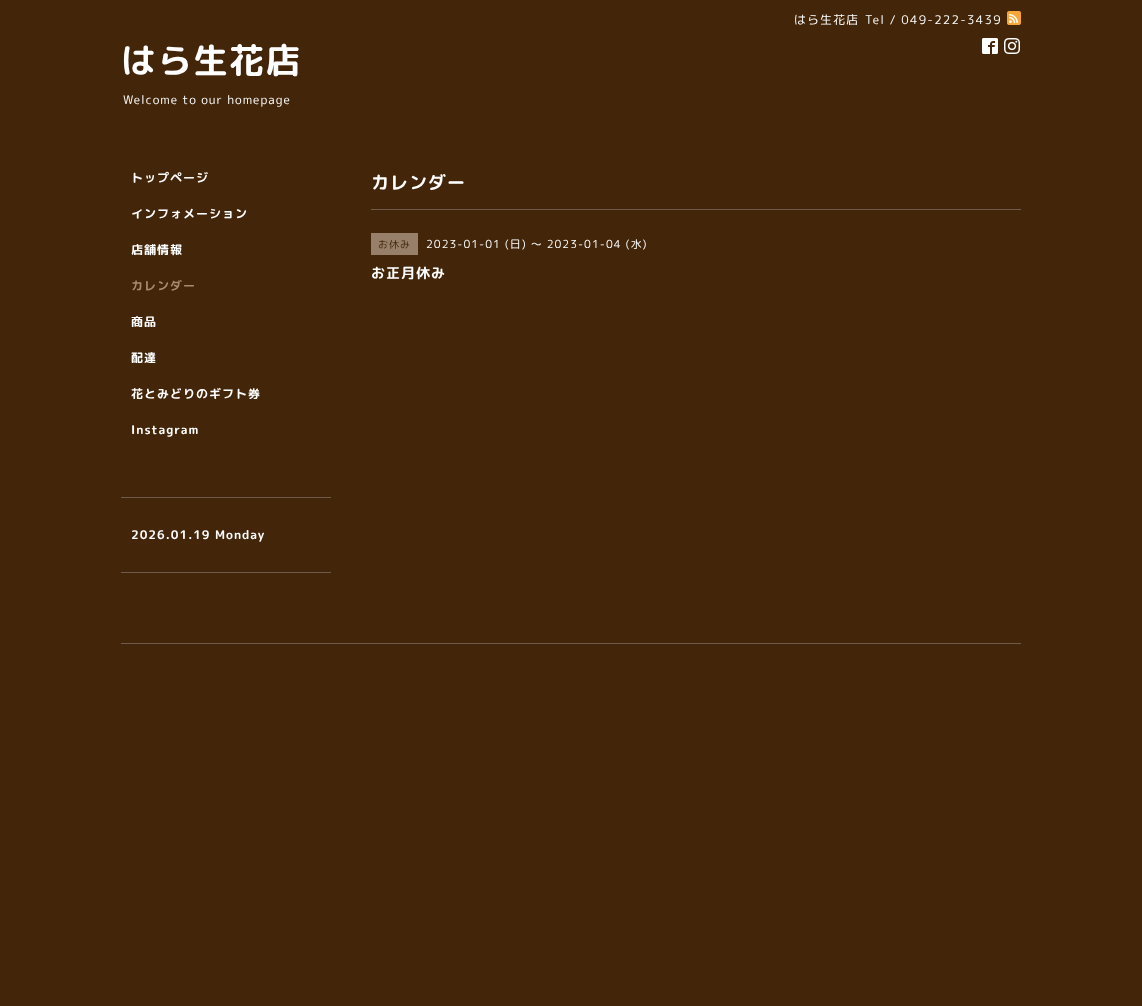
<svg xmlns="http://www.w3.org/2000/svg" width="1142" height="1006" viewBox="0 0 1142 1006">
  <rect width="100%" height="100%" fill="#43260a"/>
  <text x="794" y="24" font-family="'Rounded Mplus 1c'" font-size="12" letter-spacing="1" fill="#ffffff">はら生花店</text>
  <text x="865" y="24" font-family="'Rounded Mplus 1c'" font-size="12" letter-spacing="1.25" fill="#ffffff">Tel / 049-222-3439</text>
  <image x="1007" y="11" width="14" height="14" href="img1.png"/>
  <image x="982" y="38" width="16" height="16" href="img2.png"/>
  <image x="1004" y="38" width="16" height="16" href="img3.png"/>
  <text x="121" y="73" font-family="'Rounded Mplus 1c Bold'" font-size="35" font-weight="bold" letter-spacing="1" fill="#ffffff">はら生花店</text>
  <text x="123" y="104" font-family="'Rounded Mplus 1c'" font-size="12" letter-spacing="1" fill="#ffffff">Welcome to our homepage</text>
  <text x="131" y="182" font-family="'Rounded Mplus 1c Bold'" font-size="12" font-weight="bold" letter-spacing="1" fill="#ffffff">トップページ</text>
  <text x="131" y="218" font-family="'Rounded Mplus 1c Bold'" font-size="12" font-weight="bold" letter-spacing="1" fill="#ffffff">インフォメーション</text>
  <text x="131" y="254" font-family="'Rounded Mplus 1c Bold'" font-size="12" font-weight="bold" letter-spacing="1" fill="#ffffff">店舗情報</text>
  <text x="131" y="290" font-family="'Rounded Mplus 1c Bold'" font-size="12" font-weight="bold" letter-spacing="1" fill="#a68b71">カレンダー</text>
  <text x="131" y="326" font-family="'Rounded Mplus 1c Bold'" font-size="12" font-weight="bold" letter-spacing="1" fill="#ffffff">商品</text>
  <text x="131" y="362" font-family="'Rounded Mplus 1c Bold'" font-size="12" font-weight="bold" letter-spacing="1" fill="#ffffff">配達</text>
  <text x="131" y="398" font-family="'Rounded Mplus 1c Bold'" font-size="12" font-weight="bold" letter-spacing="1" fill="#ffffff">花とみどりのギフト券</text>
  <text x="131" y="434" font-family="'Rounded Mplus 1c Bold'" font-size="12" font-weight="bold" letter-spacing="1" fill="#ffffff">Instagram</text>
  <text x="371" y="189" font-family="'Rounded Mplus 1c Bold'" font-size="18" font-weight="bold" letter-spacing="1" fill="#ffffff">カレンダー</text>
  <rect x="371" y="209" width="650" height="1" fill="#6e5b4b"/>
  <rect x="371" y="233" width="47" height="22" fill="#977f69"/>
  <text x="378" y="248" font-family="'Rounded Mplus 1c'" font-size="10" letter-spacing="1" fill="#43260a">お休み</text>
  <text x="426" y="248" font-family="'Rounded Mplus 1c'" font-size="11" letter-spacing="1" fill="#ffffff">2023-01-01 (日) ～ 2023-01-04 (水)</text>
  <text x="371" y="278" font-family="'Rounded Mplus 1c Bold'" font-size="14" font-weight="bold" letter-spacing="1" fill="#ffffff">お正月休み</text>
  <rect x="121" y="497" width="210" height="1" fill="#6e5b4b"/>
  <rect x="121" y="572" width="210" height="1" fill="#6e5b4b"/>
  <text x="131" y="539" font-family="'Rounded Mplus 1c Bold'" font-size="12" font-weight="bold" letter-spacing="1" fill="#ffffff">2026.01.19 Monday</text>
  <rect x="121" y="643" width="900" height="1" fill="#6e5b4b"/>
</svg>
